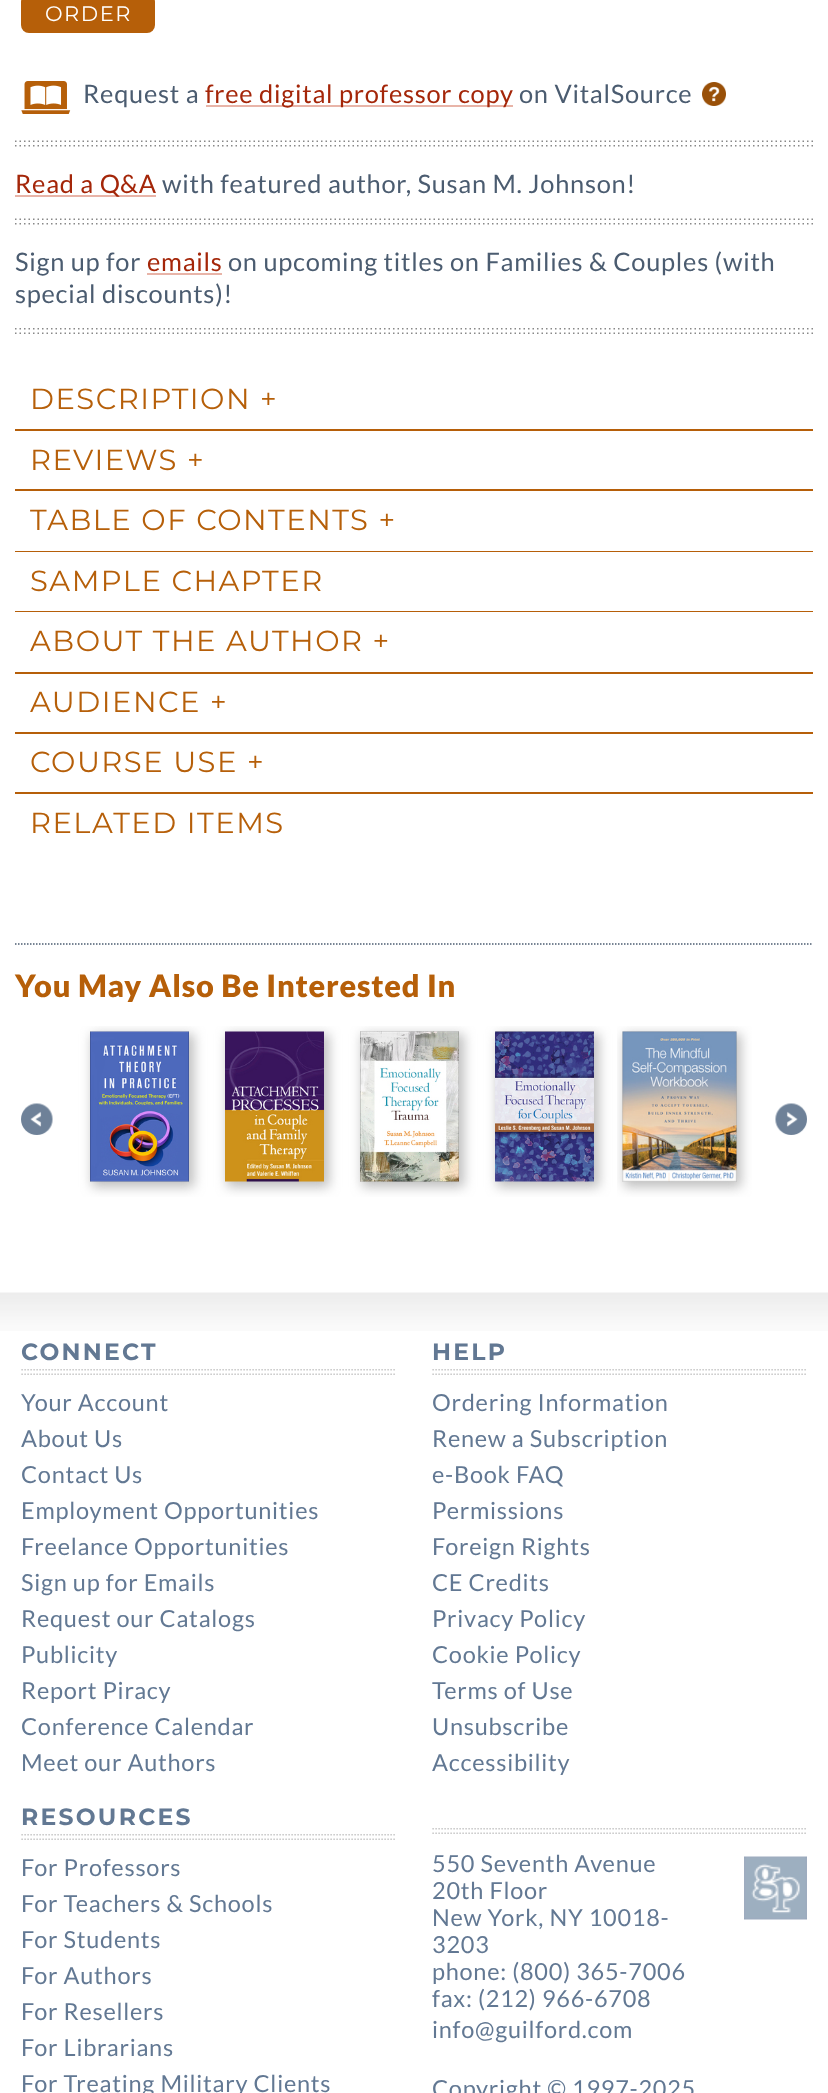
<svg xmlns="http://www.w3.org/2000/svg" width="828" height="2093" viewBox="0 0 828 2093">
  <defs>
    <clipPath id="clip1"><rect x="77" y="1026" width="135" height="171"/></clipPath>
    <filter id="blur1" x="-50%" y="-200%" width="200%" height="500%"><feGaussianBlur stdDeviation="6"/></filter>
    <clipPath id="clip2"><rect x="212" y="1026" width="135" height="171"/></clipPath>
    <clipPath id="clip3"><rect x="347" y="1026" width="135" height="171"/></clipPath>
    <clipPath id="clip4"><rect x="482" y="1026" width="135" height="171"/></clipPath>
    <clipPath id="clip5"><rect x="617" y="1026" width="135" height="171"/></clipPath>
  </defs>
  <rect width="100%" height="100%" fill="#ffffff"/>
  <rect x="21" y="-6" width="134" height="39" rx="8" fill="#b65f09"/>
  <text x="45" y="21" font-family="Montserrat" font-size="21" letter-spacing="1.5" fill="#ffffff">ORDER</text>
  <image x="21" y="81" width="50" height="33" href="img1.png"/>
  <text x="83" y="103" font-family="Lato" font-size="25.4" letter-spacing="0.75" fill="#4b5c70">Request a</text>
  <rect x="206" y="105" width="307" height="2" fill="#e8b4a8"/>
  <text x="205" y="103" font-family="Lato" font-size="25.4" letter-spacing="0.75" fill="#a42609">free digital professor copy</text>
  <text x="519" y="103" font-family="Lato" font-size="25.4" letter-spacing="0.75" fill="#4b5c70">on VitalSource</text>
  <image x="702" y="82" width="24" height="24" href="img2.png"/>
  <image x="15" y="140" width="798" height="7" href="img3.png"/>
  <rect x="15" y="195" width="141" height="2" fill="#e8b4a8"/>
  <text x="15" y="193" font-family="Lato" font-size="25.4" letter-spacing="0.75" fill="#a42609">Read a Q&amp;A</text>
  <text x="162" y="193" font-family="Lato" font-size="25.4" letter-spacing="0.75" fill="#4b5c70">with featured author, Susan M. Johnson!</text>
  <image x="15" y="218" width="798" height="7" href="img3.png"/>
  <text x="15" y="271" font-family="Lato" font-size="25.4" letter-spacing="0.75" fill="#4b5c70">Sign up for</text>
  <text x="147" y="271" font-family="Lato" font-size="25.4" letter-spacing="0.75" fill="#a42609">emails</text>
  <rect x="147" y="273" width="75" height="2" fill="#e8b4a8"/>
  <text x="228" y="271" font-family="Lato" font-size="25.4" letter-spacing="0.75" fill="#4b5c70">on upcoming titles on Families &amp; Couples (with</text>
  <text x="15" y="303" font-family="Lato" font-size="25.4" letter-spacing="0.75" fill="#4b5c70">special discounts)!</text>
  <image x="15" y="328" width="798" height="6" href="img4.png"/>
  <rect x="15" y="429" width="798" height="2" fill="#b65f09"/>
  <text x="30" y="409" font-family="Montserrat" font-size="29" letter-spacing="1.5" fill="#b65f09">DESCRIPTION +</text>
  <rect x="15" y="489" width="798" height="2" fill="#b65f09"/>
  <text x="30" y="470" font-family="Montserrat" font-size="29" letter-spacing="1.5" fill="#b65f09">REVIEWS +</text>
  <rect x="15" y="551" width="798" height="1" fill="#b65f09"/>
  <text x="30" y="530" font-family="Montserrat" font-size="29" letter-spacing="1.5" fill="#b65f09">TABLE OF CONTENTS +</text>
  <rect x="15" y="611" width="798" height="1" fill="#b65f09"/>
  <text x="30" y="591" font-family="Montserrat" font-size="29" letter-spacing="1.5" fill="#b65f09">SAMPLE CHAPTER</text>
  <rect x="15" y="672" width="798" height="2" fill="#b65f09"/>
  <text x="30" y="651" font-family="Montserrat" font-size="29" letter-spacing="1.5" fill="#b65f09">ABOUT THE AUTHOR +</text>
  <rect x="15" y="732" width="798" height="2" fill="#b65f09"/>
  <text x="30" y="712" font-family="Montserrat" font-size="29" letter-spacing="1.5" fill="#b65f09">AUDIENCE +</text>
  <rect x="15" y="792" width="798" height="2" fill="#b65f09"/>
  <text x="30" y="772" font-family="Montserrat" font-size="29" letter-spacing="1.5" fill="#b65f09">COURSE USE +</text>
  <text x="30" y="833" font-family="Montserrat" font-size="29" letter-spacing="1.5" fill="#b65f09">RELATED ITEMS</text>
  <path d="M15 944H813" fill="none" stroke="#4b5c70" stroke-width="1.5" stroke-dasharray="1.5 1.5"/>
  <text x="15" y="997" font-family="Lato" font-size="30.75" font-weight="900" letter-spacing="0.75" fill="#b65f09">You May Also Be Interested In</text>
  <image x="21" y="1103" width="32" height="32" href="img5.png"/>
  <g clip-path="url(#clip1)">
    <rect x="92" y="1034" width="102" height="153" fill="#a8a8a8" fill-opacity="0.75" filter="url(#blur1)"/>
  </g>
  <image x="90" y="1031" width="99" height="151" href="img6.png"/>
  <g clip-path="url(#clip2)">
    <rect x="227" y="1034" width="102" height="153" fill="#a8a8a8" fill-opacity="0.75" filter="url(#blur1)"/>
  </g>
  <image x="225" y="1031" width="99" height="151" href="img7.png"/>
  <g clip-path="url(#clip3)">
    <rect x="362" y="1034" width="102" height="153" fill="#a8a8a8" fill-opacity="0.75" filter="url(#blur1)"/>
  </g>
  <image x="360" y="1031" width="99" height="151" href="img8.png"/>
  <g clip-path="url(#clip4)">
    <rect x="497" y="1034" width="102" height="153" fill="#a8a8a8" fill-opacity="0.75" filter="url(#blur1)"/>
  </g>
  <image x="495" y="1031" width="99" height="151" href="img9.png"/>
  <g clip-path="url(#clip5)">
    <rect x="624" y="1034" width="117" height="153" fill="#a8a8a8" fill-opacity="0.75" filter="url(#blur1)"/>
  </g>
  <image x="622" y="1031" width="115" height="151" href="img10.png"/>
  <image x="775" y="1103" width="32" height="32" href="img11.png"/>
  <image x="0" y="1292" width="828" height="39" href="img12.png"/>
  <image x="21" y="1369" width="374" height="6" href="img13.png"/>
  <text x="21" y="1360" font-family="Montserrat" font-size="23.5" font-weight="bold" letter-spacing="2.25" fill="#627893">CONNECT</text>
  <text x="21" y="1411" font-family="Lato" font-size="23.5" letter-spacing="0.75" fill="#627893">Your Account</text>
  <text x="21" y="1447" font-family="Lato" font-size="23.5" letter-spacing="0.75" fill="#627893">About Us</text>
  <text x="21" y="1483" font-family="Lato" font-size="23.5" letter-spacing="0.75" fill="#627893">Contact Us</text>
  <text x="21" y="1519" font-family="Lato" font-size="23.5" letter-spacing="0.75" fill="#627893">Employment Opportunities</text>
  <text x="21" y="1555" font-family="Lato" font-size="23.5" letter-spacing="0.75" fill="#627893">Freelance Opportunities</text>
  <text x="21" y="1591" font-family="Lato" font-size="23.5" letter-spacing="0.75" fill="#627893">Sign up for Emails</text>
  <text x="21" y="1627" font-family="Lato" font-size="23.5" letter-spacing="0.75" fill="#627893">Request our Catalogs</text>
  <text x="21" y="1663" font-family="Lato" font-size="23.5" letter-spacing="0.75" fill="#627893">Publicity</text>
  <text x="21" y="1699" font-family="Lato" font-size="23.5" letter-spacing="0.75" fill="#627893">Report Piracy</text>
  <text x="21" y="1735" font-family="Lato" font-size="23.5" letter-spacing="0.75" fill="#627893">Conference Calendar</text>
  <text x="21" y="1771" font-family="Lato" font-size="23.5" letter-spacing="0.75" fill="#627893">Meet our Authors</text>
  <image x="432" y="1369" width="374" height="6" href="img13.png"/>
  <text x="432" y="1360" font-family="Montserrat" font-size="23.5" font-weight="bold" letter-spacing="2.25" fill="#627893">HELP</text>
  <text x="432" y="1411" font-family="Lato" font-size="23.5" letter-spacing="0.75" fill="#627893">Ordering Information</text>
  <text x="432" y="1447" font-family="Lato" font-size="23.5" letter-spacing="0.75" fill="#627893">Renew a Subscription</text>
  <text x="432" y="1483" font-family="Lato" font-size="23.5" letter-spacing="0.75" fill="#627893">e-Book FAQ</text>
  <text x="432" y="1519" font-family="Lato" font-size="23.5" letter-spacing="0.75" fill="#627893">Permissions</text>
  <text x="432" y="1555" font-family="Lato" font-size="23.5" letter-spacing="0.75" fill="#627893">Foreign Rights</text>
  <text x="432" y="1591" font-family="Lato" font-size="23.5" letter-spacing="0.75" fill="#627893">CE Credits</text>
  <text x="432" y="1627" font-family="Lato" font-size="23.5" letter-spacing="0.75" fill="#627893">Privacy Policy</text>
  <text x="432" y="1663" font-family="Lato" font-size="23.5" letter-spacing="0.75" fill="#627893">Cookie Policy</text>
  <text x="432" y="1699" font-family="Lato" font-size="23.5" letter-spacing="0.75" fill="#627893">Terms of Use</text>
  <text x="432" y="1735" font-family="Lato" font-size="23.5" letter-spacing="0.75" fill="#627893">Unsubscribe</text>
  <text x="432" y="1771" font-family="Lato" font-size="23.5" letter-spacing="0.75" fill="#627893">Accessibility</text>
  <image x="21" y="1834" width="374" height="6" href="img13.png"/>
  <text x="21" y="1825" font-family="Montserrat" font-size="23.5" font-weight="bold" letter-spacing="2.25" fill="#627893">RESOURCES</text>
  <text x="21" y="1876" font-family="Lato" font-size="23.5" letter-spacing="0.75" fill="#627893">For Professors</text>
  <text x="21" y="1912" font-family="Lato" font-size="23.5" letter-spacing="0.75" fill="#627893">For Teachers &amp; Schools</text>
  <text x="21" y="1948" font-family="Lato" font-size="23.5" letter-spacing="0.75" fill="#627893">For Students</text>
  <text x="21" y="1984" font-family="Lato" font-size="23.5" letter-spacing="0.75" fill="#627893">For Authors</text>
  <text x="21" y="2020" font-family="Lato" font-size="23.5" letter-spacing="0.75" fill="#627893">For Resellers</text>
  <text x="21" y="2056" font-family="Lato" font-size="23.5" letter-spacing="0.75" fill="#627893">For Librarians</text>
  <text x="21" y="2092" font-family="Lato" font-size="23.5" letter-spacing="0.75" fill="#627893">For Treating Military Clients</text>
  <image x="432" y="1828" width="374" height="6" href="img13.png"/>
  <image x="744" y="1856" width="63" height="64" href="img14.png"/>
  <text x="432" y="1872" font-family="Lato" font-size="23.5" letter-spacing="0.75" fill="#627893">550 Seventh Avenue</text>
  <text x="432" y="1899" font-family="Lato" font-size="23.5" letter-spacing="0.75" fill="#627893">20th Floor</text>
  <text x="432" y="1926" font-family="Lato" font-size="23.5" letter-spacing="0.75" fill="#627893">New York, NY 10018-</text>
  <text x="432" y="1953" font-family="Lato" font-size="23.5" letter-spacing="0.75" fill="#627893">3203</text>
  <text x="432" y="1980" font-family="Lato" font-size="23.5" letter-spacing="0.75" fill="#627893">phone: (800) 365-7006</text>
  <text x="432" y="2007" font-family="Lato" font-size="23.5" letter-spacing="0.75" fill="#627893">fax: (212) 966-6708</text>
  <text x="432" y="2038" font-family="Lato" font-size="23.5" letter-spacing="0.75" fill="#627893">info@guilford.com</text>
  <text x="432" y="2097" font-family="Lato" font-size="23.5" letter-spacing="0.75" fill="#627893">Copyright © 1997-2025</text>
</svg>
